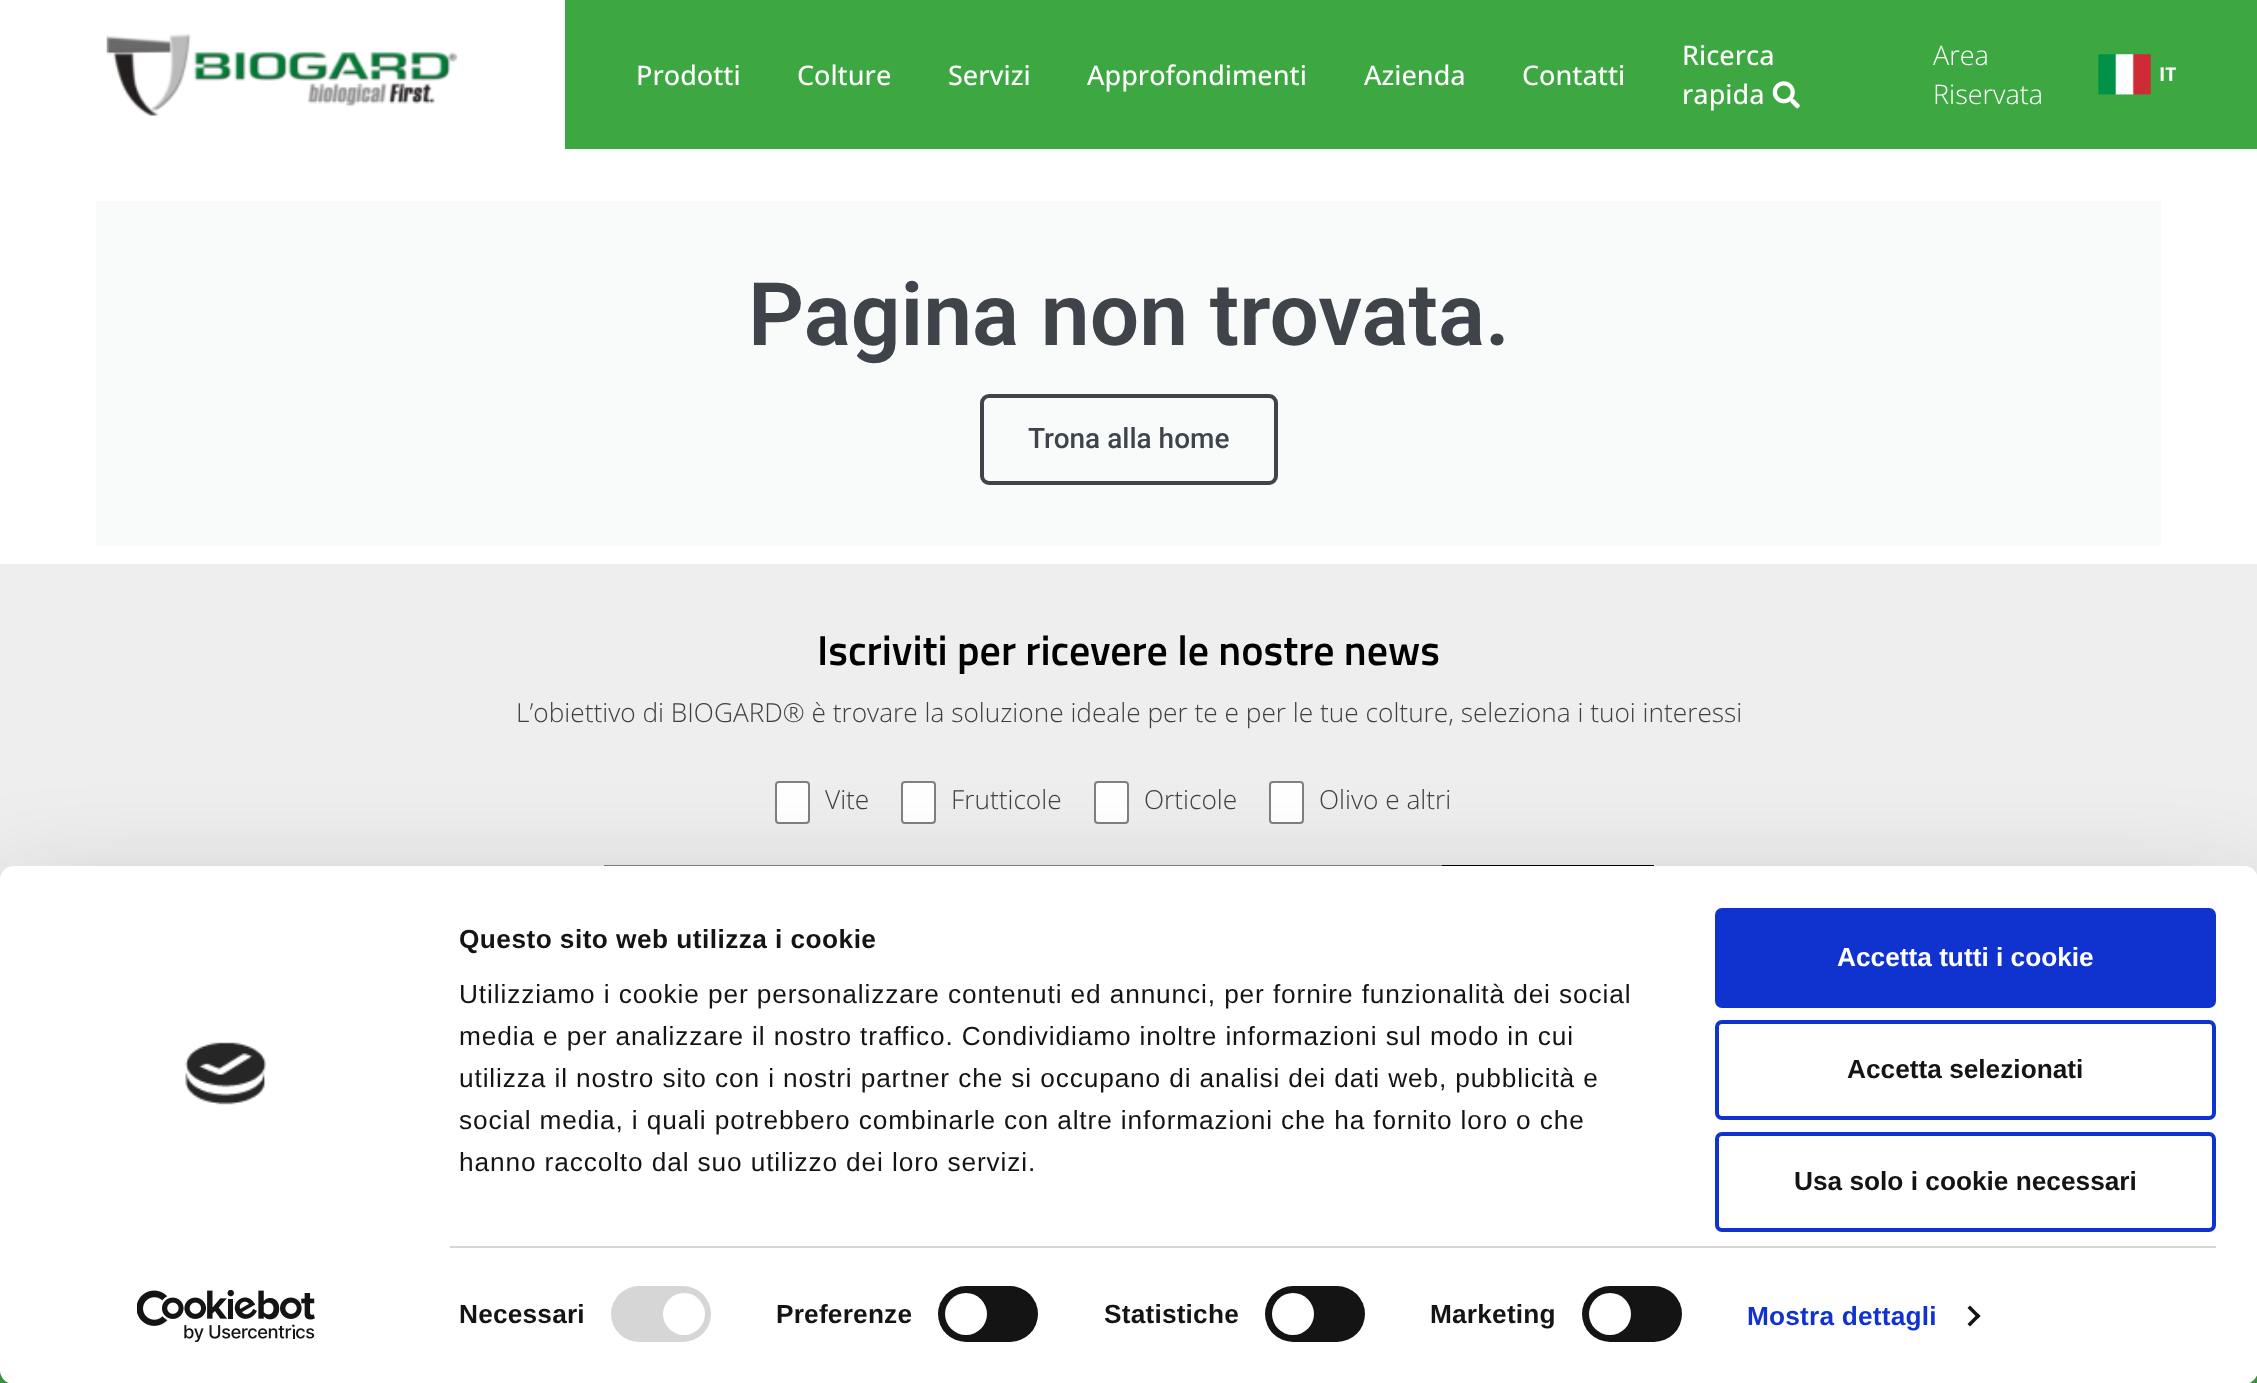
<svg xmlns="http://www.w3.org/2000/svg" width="2257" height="1383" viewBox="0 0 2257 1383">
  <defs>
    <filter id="blur1" x="-50%" y="-200%" width="200%" height="500%"><feGaussianBlur stdDeviation="61"/></filter>
  </defs>
  <rect width="100%" height="100%" fill="#ffffff"/>
  <image x="106" y="33" width="352" height="83" href="img1.png"/>
  <rect x="565" y="0" width="1692" height="149" fill="#3da841"/>
  <text x="636" y="85" font-family="Open Sans" font-size="27" font-weight="500" fill="#ffffff">Prodotti</text>
  <text x="797" y="85" font-family="Open Sans" font-size="27" font-weight="500" fill="#ffffff">Colture</text>
  <text x="948" y="85" font-family="Open Sans" font-size="27" font-weight="500" fill="#ffffff">Servizi</text>
  <text x="1087" y="85" font-family="Open Sans" font-size="27" font-weight="500" fill="#ffffff">Approfondimenti</text>
  <text x="1364" y="85" font-family="Open Sans" font-size="27" font-weight="500" fill="#ffffff">Azienda</text>
  <text x="1522" y="85" font-family="Open Sans" font-size="27" font-weight="500" fill="#ffffff">Contatti</text>
  <text x="1682" y="65" font-family="Open Sans" font-size="27" font-weight="500" fill="#ffffff">Ricerca</text>
  <text x="1682" y="104" font-family="Open Sans" font-size="27" font-weight="500" fill="#ffffff">rapida</text>
  <image x="1772" y="81" width="28" height="28" href="img2.png"/>
  <text x="1933" y="65" font-family="Open Sans" font-size="27" font-weight="300" fill="#ffffff">Area</text>
  <text x="1933" y="104" font-family="Open Sans" font-size="27" font-weight="300" fill="#ffffff">Riservata</text>
  <image x="2098" y="54" width="53" height="41" href="img3.png"/>
  <text x="2159" y="81" font-family="Open Sans" font-size="19" font-weight="bold" fill="#ffffff">IT</text>
  <rect x="96" y="201" width="2065" height="345" fill="#f9fafa"/>
  <text x="748" y="345" font-family="Roboto" font-size="87.5" font-weight="600" fill="#3f444b">Pagina non trovata.</text>
  <rect x="982" y="396" width="294" height="87" rx="7" fill="none" stroke="#3f444b" stroke-width="4"/>
  <text x="1028" y="448" font-family="Roboto" font-size="28" font-weight="500" fill="#3f444b">Trona alla home</text>
  <rect x="0" y="564" width="2257" height="316" fill="#eeeeee"/>
  <text x="817" y="665" font-family="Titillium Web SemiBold" font-size="42" font-weight="600" fill="#000000">Iscriviti per ricevere le nostre news</text>
  <text x="516" y="722" font-family="Open Sans" font-size="26.25" font-weight="300" fill="#404040">L’obiettivo di BIOGARD® è trovare la soluzione ideale per te e per le tue colture, seleziona i tuoi interessi</text>
  <rect x="776" y="782" width="33" height="41" rx="3" fill="#ffffff" stroke="#808080" stroke-width="2"/>
  <text x="825" y="809" font-family="Open Sans" font-size="26.25" font-weight="300" fill="#404040">Vite</text>
  <rect x="902" y="782" width="33" height="41" rx="3" fill="#ffffff" stroke="#808080" stroke-width="2"/>
  <text x="951" y="809" font-family="Open Sans" font-size="26.25" font-weight="300" fill="#404040">Frutticole</text>
  <rect x="1095" y="782" width="33" height="41" rx="3" fill="#ffffff" stroke="#808080" stroke-width="2"/>
  <text x="1144" y="809" font-family="Open Sans" font-size="26.25" font-weight="300" fill="#404040">Orticole</text>
  <rect x="1270" y="782" width="33" height="41" rx="3" fill="#ffffff" stroke="#808080" stroke-width="2"/>
  <text x="1319" y="809" font-family="Open Sans" font-size="26.25" font-weight="300" fill="#404040">Olivo e altri</text>
  <rect x="605" y="866" width="1048" height="68" fill="none" stroke="#808080" stroke-width="2"/>
  <rect x="1442" y="865" width="212" height="1" fill="#000000"/>
  <rect x="0" y="1370" width="2257" height="13" fill="#3da841"/>
  <rect x="0" y="919" width="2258" height="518" rx="14" fill="#000000" fill-opacity="0.3" filter="url(#blur1)"/>
  <rect x="0" y="866" width="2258" height="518" rx="14" fill="#ffffff"/>
  <image x="185" y="1042" width="81" height="63" href="img4.png"/>
  <image x="137" y="1290" width="178" height="52" href="img5.png"/>
  <text x="459" y="948" font-family="Liberation Sans" font-size="26.25" font-weight="bold" letter-spacing="0.45" fill="#141414">Questo sito web utilizza i cookie</text>
  <text x="459" y="1003" font-family="Liberation Sans" font-size="26.25" letter-spacing="0.88" fill="#141414">Utilizziamo i cookie per personalizzare contenuti ed annunci, per fornire funzionalità dei social</text>
  <text x="459" y="1045" font-family="Liberation Sans" font-size="26.25" letter-spacing="0.88" fill="#141414">media e per analizzare il nostro traffico. Condividiamo inoltre informazioni sul modo in cui</text>
  <text x="459" y="1087" font-family="Liberation Sans" font-size="26.25" letter-spacing="0.88" fill="#141414">utilizza il nostro sito con i nostri partner che si occupano di analisi dei dati web, pubblicità e</text>
  <text x="459" y="1129" font-family="Liberation Sans" font-size="26.25" letter-spacing="0.88" fill="#141414">social media, i quali potrebbero combinarle con altre informazioni che ha fornito loro o che</text>
  <text x="459" y="1171" font-family="Liberation Sans" font-size="26.25" letter-spacing="0.88" fill="#141414">hanno raccolto dal suo utilizzo dei loro servizi.</text>
  <rect x="450" y="1246" width="1766" height="2" fill="#d6d6d6"/>
  <text x="459" y="1323" font-family="Liberation Sans" font-size="26.25" font-weight="bold" letter-spacing="0.2" fill="#141414">Necessari</text>
  <rect x="611" y="1286" width="100" height="56" rx="28" fill="#d6d6d6"/>
  <circle cx="684" cy="1314" r="21" fill="#ffffff"/>
  <text x="776" y="1323" font-family="Liberation Sans" font-size="26.25" font-weight="bold" letter-spacing="0.2" fill="#141414">Preferenze</text>
  <rect x="938" y="1286" width="100" height="56" rx="28" fill="#141414"/>
  <circle cx="966" cy="1314" r="21" fill="#ffffff"/>
  <text x="1104" y="1323" font-family="Liberation Sans" font-size="26.25" font-weight="bold" letter-spacing="0.2" fill="#141414">Statistiche</text>
  <rect x="1265" y="1286" width="100" height="56" rx="28" fill="#141414"/>
  <circle cx="1293" cy="1314" r="21" fill="#ffffff"/>
  <text x="1430" y="1323" font-family="Liberation Sans" font-size="26.25" font-weight="bold" letter-spacing="0.2" fill="#141414">Marketing</text>
  <rect x="1582" y="1286" width="100" height="56" rx="28" fill="#141414"/>
  <circle cx="1610" cy="1314" r="21" fill="#ffffff"/>
  <text x="1747" y="1325" font-family="Liberation Sans" font-size="26.25" font-weight="bold" letter-spacing="0.2" fill="#1032cf">Mostra dettagli</text>
  <path d="M1970 1305.5L1980.5 1316L1978 1318.5L1967.5 1308Z" fill="#141414"/>
  <path d="M1978 1313.5L1980.5 1316L1970 1326.5L1967.5 1324Z" fill="#141414"/>
  <rect x="1717" y="910" width="497" height="96" rx="5" fill="#1032cf" stroke="#1032cf" stroke-width="4"/>
  <text x="1837" y="966" font-family="Liberation Sans" font-size="26.25" font-weight="bold" fill="#ffffff">Accetta tutti i cookie</text>
  <rect x="1717" y="1022" width="497" height="96" rx="5" fill="none" stroke="#1032cf" stroke-width="4"/>
  <text x="1847" y="1078" font-family="Liberation Sans" font-size="26.25" font-weight="bold" fill="#141414">Accetta selezionati</text>
  <rect x="1717" y="1134" width="497" height="96" rx="5" fill="none" stroke="#1032cf" stroke-width="4"/>
  <text x="1794" y="1190" font-family="Liberation Sans" font-size="26.25" font-weight="bold" fill="#141414">Usa solo i cookie necessari</text>
</svg>
